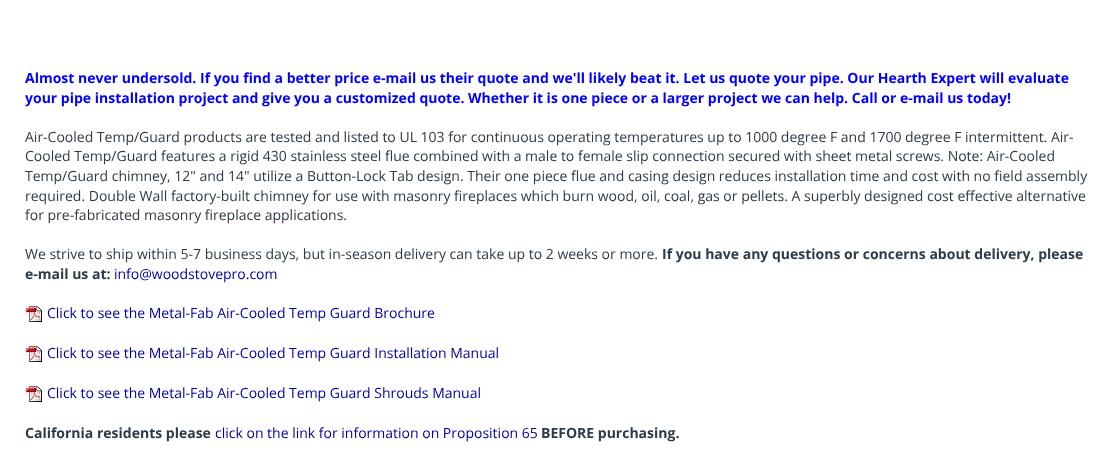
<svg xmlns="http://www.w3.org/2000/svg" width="1119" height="463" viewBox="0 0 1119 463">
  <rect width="100%" height="100%" fill="#ffffff"/>
  <text x="25" y="83" font-family="Open Sans" font-size="14" font-weight="bold" fill="#0000ff">Almost never undersold. If you find a better price e-mail us their quote and we'll likely beat it. Let us quote your pipe. Our Hearth Expert will evaluate</text>
  <text x="25" y="103" font-family="Open Sans" font-size="14" font-weight="bold" fill="#0000ff">your pipe installation project and give you a customized quote. Whether it is one piece or a larger project we can help. Call or e-mail us today!</text>
  <text x="25" y="142" font-family="Open Sans" font-size="14" fill="#2e3a47">Air-Cooled Temp/Guard products are tested and listed to UL 103 for continuous operating temperatures up to 1000 degree F and 1700 degree F intermittent. Air-</text>
  <text x="25" y="161" font-family="Open Sans" font-size="14" fill="#2e3a47">Cooled Temp/Guard features a rigid 430 stainless steel flue combined with a male to female slip connection secured with sheet metal screws. Note: Air-Cooled</text>
  <text x="25" y="181" font-family="Open Sans" font-size="14" fill="#2e3a47">Temp/Guard chimney, 12" and 14" utilize a Button-Lock Tab design. Their one piece flue and casing design reduces installation time and cost with no field assembly</text>
  <text x="25" y="201" font-family="Open Sans" font-size="14" fill="#2e3a47">required. Double Wall factory-built chimney for use with masonry fireplaces which burn wood, oil, coal, gas or pellets. A superbly designed cost effective alternative</text>
  <text x="25" y="220" font-family="Open Sans" font-size="14" fill="#2e3a47">for pre-fabricated masonry fireplace applications.</text>
  <text x="25" y="259" font-family="Open Sans" font-size="14" fill="#2e3a47">We strive to ship within 5-7 business days, but in-season delivery can take up to 2 weeks or more.</text>
  <text x="662" y="259" font-family="Open Sans" font-size="14" font-weight="bold" fill="#2e3a47">If you have any questions or concerns about delivery, please</text>
  <text x="25" y="279" font-family="Open Sans" font-size="14" font-weight="bold" fill="#2e3a47">e-mail us at:</text>
  <text x="114" y="279" font-family="Open Sans" font-size="14" fill="#0000a3">info@woodstovepro.com</text>
  <image x="25" y="305" width="18" height="18" href="img1.png"/>
  <text x="47" y="318" font-family="Open Sans" font-size="14" fill="#0000a3">Click to see the Metal-Fab Air-Cooled Temp Guard Brochure</text>
  <image x="25" y="345" width="18" height="18" href="img1.png"/>
  <text x="47" y="358" font-family="Open Sans" font-size="14" fill="#0000a3">Click to see the Metal-Fab Air-Cooled Temp Guard Installation Manual</text>
  <image x="25" y="385" width="18" height="18" href="img1.png"/>
  <text x="47" y="398" font-family="Open Sans" font-size="14" fill="#0000a3">Click to see the Metal-Fab Air-Cooled Temp Guard Shrouds Manual</text>
  <text x="25" y="438" font-family="Open Sans" font-size="14" font-weight="bold" fill="#2e3a47">California residents please</text>
  <text x="215" y="438" font-family="Open Sans" font-size="14" fill="#0000a3">click on the link for information on Proposition 65</text>
  <text x="541" y="438" font-family="Open Sans" font-size="14" font-weight="bold" fill="#2e3a47">BEFORE purchasing.</text>
</svg>
